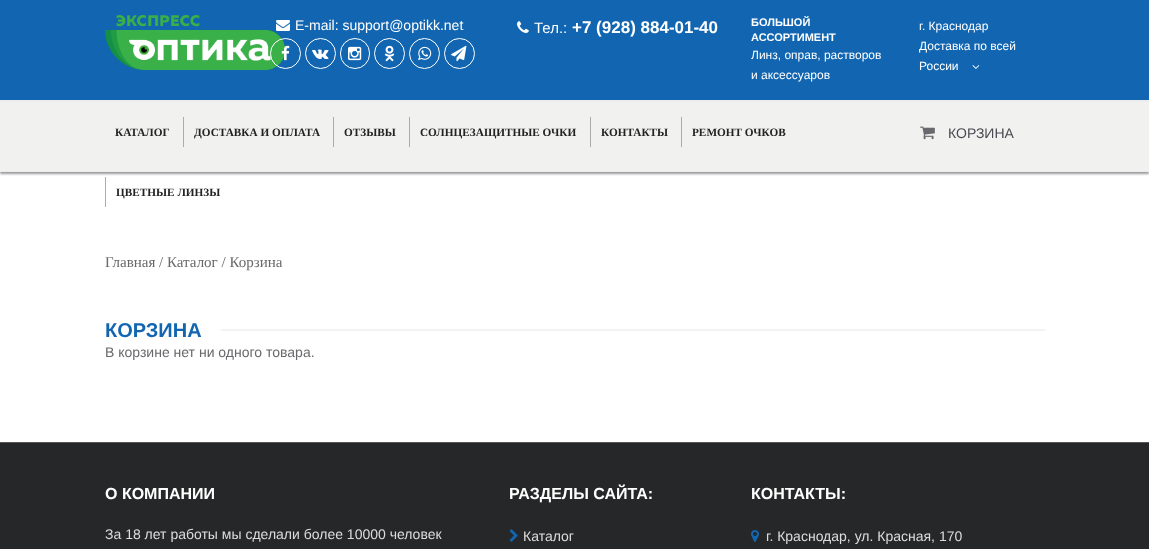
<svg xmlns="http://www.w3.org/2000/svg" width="1149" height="549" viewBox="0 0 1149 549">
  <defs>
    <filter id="blur1" x="-50%" y="-200%" width="200%" height="500%"><feGaussianBlur stdDeviation="1"/></filter>
  </defs>
  <rect width="100%" height="100%" fill="#ffffff"/>
  <rect x="0" y="0" width="1149" height="100" fill="#1266b1"/>
  <image x="105" y="15" width="180" height="55" href="img1.png"/>
  <image x="276" y="20" width="14" height="11" href="img2.png"/>
  <text x="295" y="30" font-family="Liberation Sans" font-size="14" fill="#ffffff">E-mail: support@optikk.net</text>
  <circle cx="285.5" cy="53.5" r="15" fill="none" stroke="#ffffff"/>
  <image x="281" y="45" width="9" height="16" href="img3.png"/>
  <circle cx="320.5" cy="53.5" r="15" fill="none" stroke="#ffffff"/>
  <image x="312" y="49" width="17" height="10" href="img4.png"/>
  <rect x="340.5" y="38.5" width="29" height="30" rx="14.5" fill="none" stroke="#ffffff"/>
  <image x="348" y="46" width="14" height="15" href="img5.png"/>
  <circle cx="389.5" cy="53.5" r="15" fill="none" stroke="#ffffff"/>
  <image x="384" y="45" width="11" height="17" href="img6.png"/>
  <circle cx="424.5" cy="53.5" r="15" fill="none" stroke="#ffffff"/>
  <image x="418" y="46" width="14" height="15" href="img7.png"/>
  <circle cx="459.5" cy="53.5" r="15" fill="none" stroke="#ffffff"/>
  <image x="451" y="45" width="16" height="17" href="img8.png"/>
  <image x="517" y="21" width="12" height="12" href="img9.png"/>
  <text x="534" y="33" font-family="Liberation Sans" font-size="15" fill="#ffffff">Тел.:</text>
  <text x="572" y="33" font-family="Liberation Sans" font-size="17" font-weight="bold" fill="#ffffff">+7 (928) 884-01-40</text>
  <text x="751" y="26" font-family="Liberation Sans" font-size="11" font-weight="bold" fill="#ffffff">БОЛЬШОЙ</text>
  <text x="751" y="41" font-family="Liberation Sans" font-size="11" font-weight="bold" fill="#ffffff">АССОРТИМЕНТ</text>
  <text x="751" y="59" font-family="Liberation Sans" font-size="12" fill="#ffffff">Линз, оправ, растворов</text>
  <text x="751" y="79" font-family="Liberation Sans" font-size="12" fill="#ffffff">и аксессуаров</text>
  <text x="919" y="30" font-family="Liberation Sans" font-size="12" fill="#ffffff">г. Краснодар</text>
  <text x="919" y="50" font-family="Liberation Sans" font-size="12" fill="#ffffff">Доставка по всей</text>
  <text x="919" y="70" font-family="Liberation Sans" font-size="12" fill="#ffffff">России</text>
  <image x="972" y="65" width="8" height="4" href="img10.png"/>
  <rect x="0" y="102" width="1149" height="72" fill="#000000" fill-opacity="0.4" filter="url(#blur1)"/>
  <rect x="0" y="102" width="1149" height="69" fill="#f1f1f0"/>
  <rect x="0" y="100" width="1149" height="2" fill="#ececef"/>
  <rect x="0" y="171" width="1149" height="1" fill="#ececef"/>
  <text x="115" y="136" font-family="Liberation Serif" font-size="11.25" font-weight="bold" fill="#232323">КАТАЛОГ</text>
  <rect x="183" y="117" width="1" height="30" fill="#acacac"/>
  <text x="194" y="136" font-family="Liberation Serif" font-size="11.25" font-weight="bold" fill="#232323">ДОСТАВКА И ОПЛАТА</text>
  <rect x="333" y="117" width="1" height="30" fill="#acacac"/>
  <text x="344" y="136" font-family="Liberation Serif" font-size="11.25" font-weight="bold" fill="#232323">ОТЗЫВЫ</text>
  <rect x="409" y="117" width="1" height="30" fill="#acacac"/>
  <text x="420" y="136" font-family="Liberation Serif" font-size="11.25" font-weight="bold" fill="#232323">СОЛНЦЕЗАЩИТНЫЕ ОЧКИ</text>
  <rect x="590" y="117" width="1" height="30" fill="#acacac"/>
  <text x="601" y="136" font-family="Liberation Serif" font-size="11.25" font-weight="bold" fill="#232323">КОНТАКТЫ</text>
  <rect x="681" y="117" width="1" height="30" fill="#acacac"/>
  <text x="692" y="136" font-family="Liberation Serif" font-size="11.25" font-weight="bold" fill="#232323">РЕМОНТ ОЧКОВ</text>
  <rect x="105" y="177" width="1" height="30" fill="#acacac"/>
  <text x="116" y="196" font-family="Liberation Serif" font-size="11.25" font-weight="bold" fill="#232323">ЦВЕТНЫЕ ЛИНЗЫ</text>
  <image x="920" y="126" width="15" height="14" href="img11.png"/>
  <text x="948" y="138" font-family="Liberation Sans" font-size="14" fill="#4a4a51">КОРЗИНА</text>
  <text x="105" y="267" font-family="Liberation Serif" font-size="15" fill="#69686c">Главная / Каталог / Корзина</text>
  <text x="105" y="337" font-family="Liberation Sans" font-size="20" font-weight="bold" fill="#1266b1">КОРЗИНА</text>
  <rect x="221" y="329" width="824" height="2" fill="#f3f3f3"/>
  <text x="105" y="357" font-family="Liberation Sans" font-size="14" fill="#69686c">В корзине нет ни одного товара.</text>
  <rect x="0" y="443" width="1149" height="106" fill="#262728"/>
  <rect x="0" y="442" width="1149" height="1" fill="#575758"/>
  <text x="105" y="499" font-family="Liberation Sans" font-size="16" font-weight="bold" fill="#ffffff">О КОМПАНИИ</text>
  <text x="105" y="539" font-family="Liberation Sans" font-size="14" fill="#dddddd">За 18 лет работы мы сделали более 10000 человек</text>
  <text x="509" y="499" font-family="Liberation Sans" font-size="16" font-weight="bold" fill="#ffffff">РАЗДЕЛЫ САЙТА:</text>
  <image x="509" y="529" width="9" height="13" href="img12.png"/>
  <text x="523" y="541" font-family="Liberation Sans" font-size="14" fill="#dddddd">Каталог</text>
  <text x="751" y="499" font-family="Liberation Sans" font-size="16" font-weight="bold" fill="#ffffff">КОНТАКТЫ:</text>
  <image x="751" y="530" width="8" height="12" href="img13.png"/>
  <text x="766" y="541" font-family="Liberation Sans" font-size="14" fill="#dddddd">г. Краснодар, ул. Красная, 170</text>
</svg>
